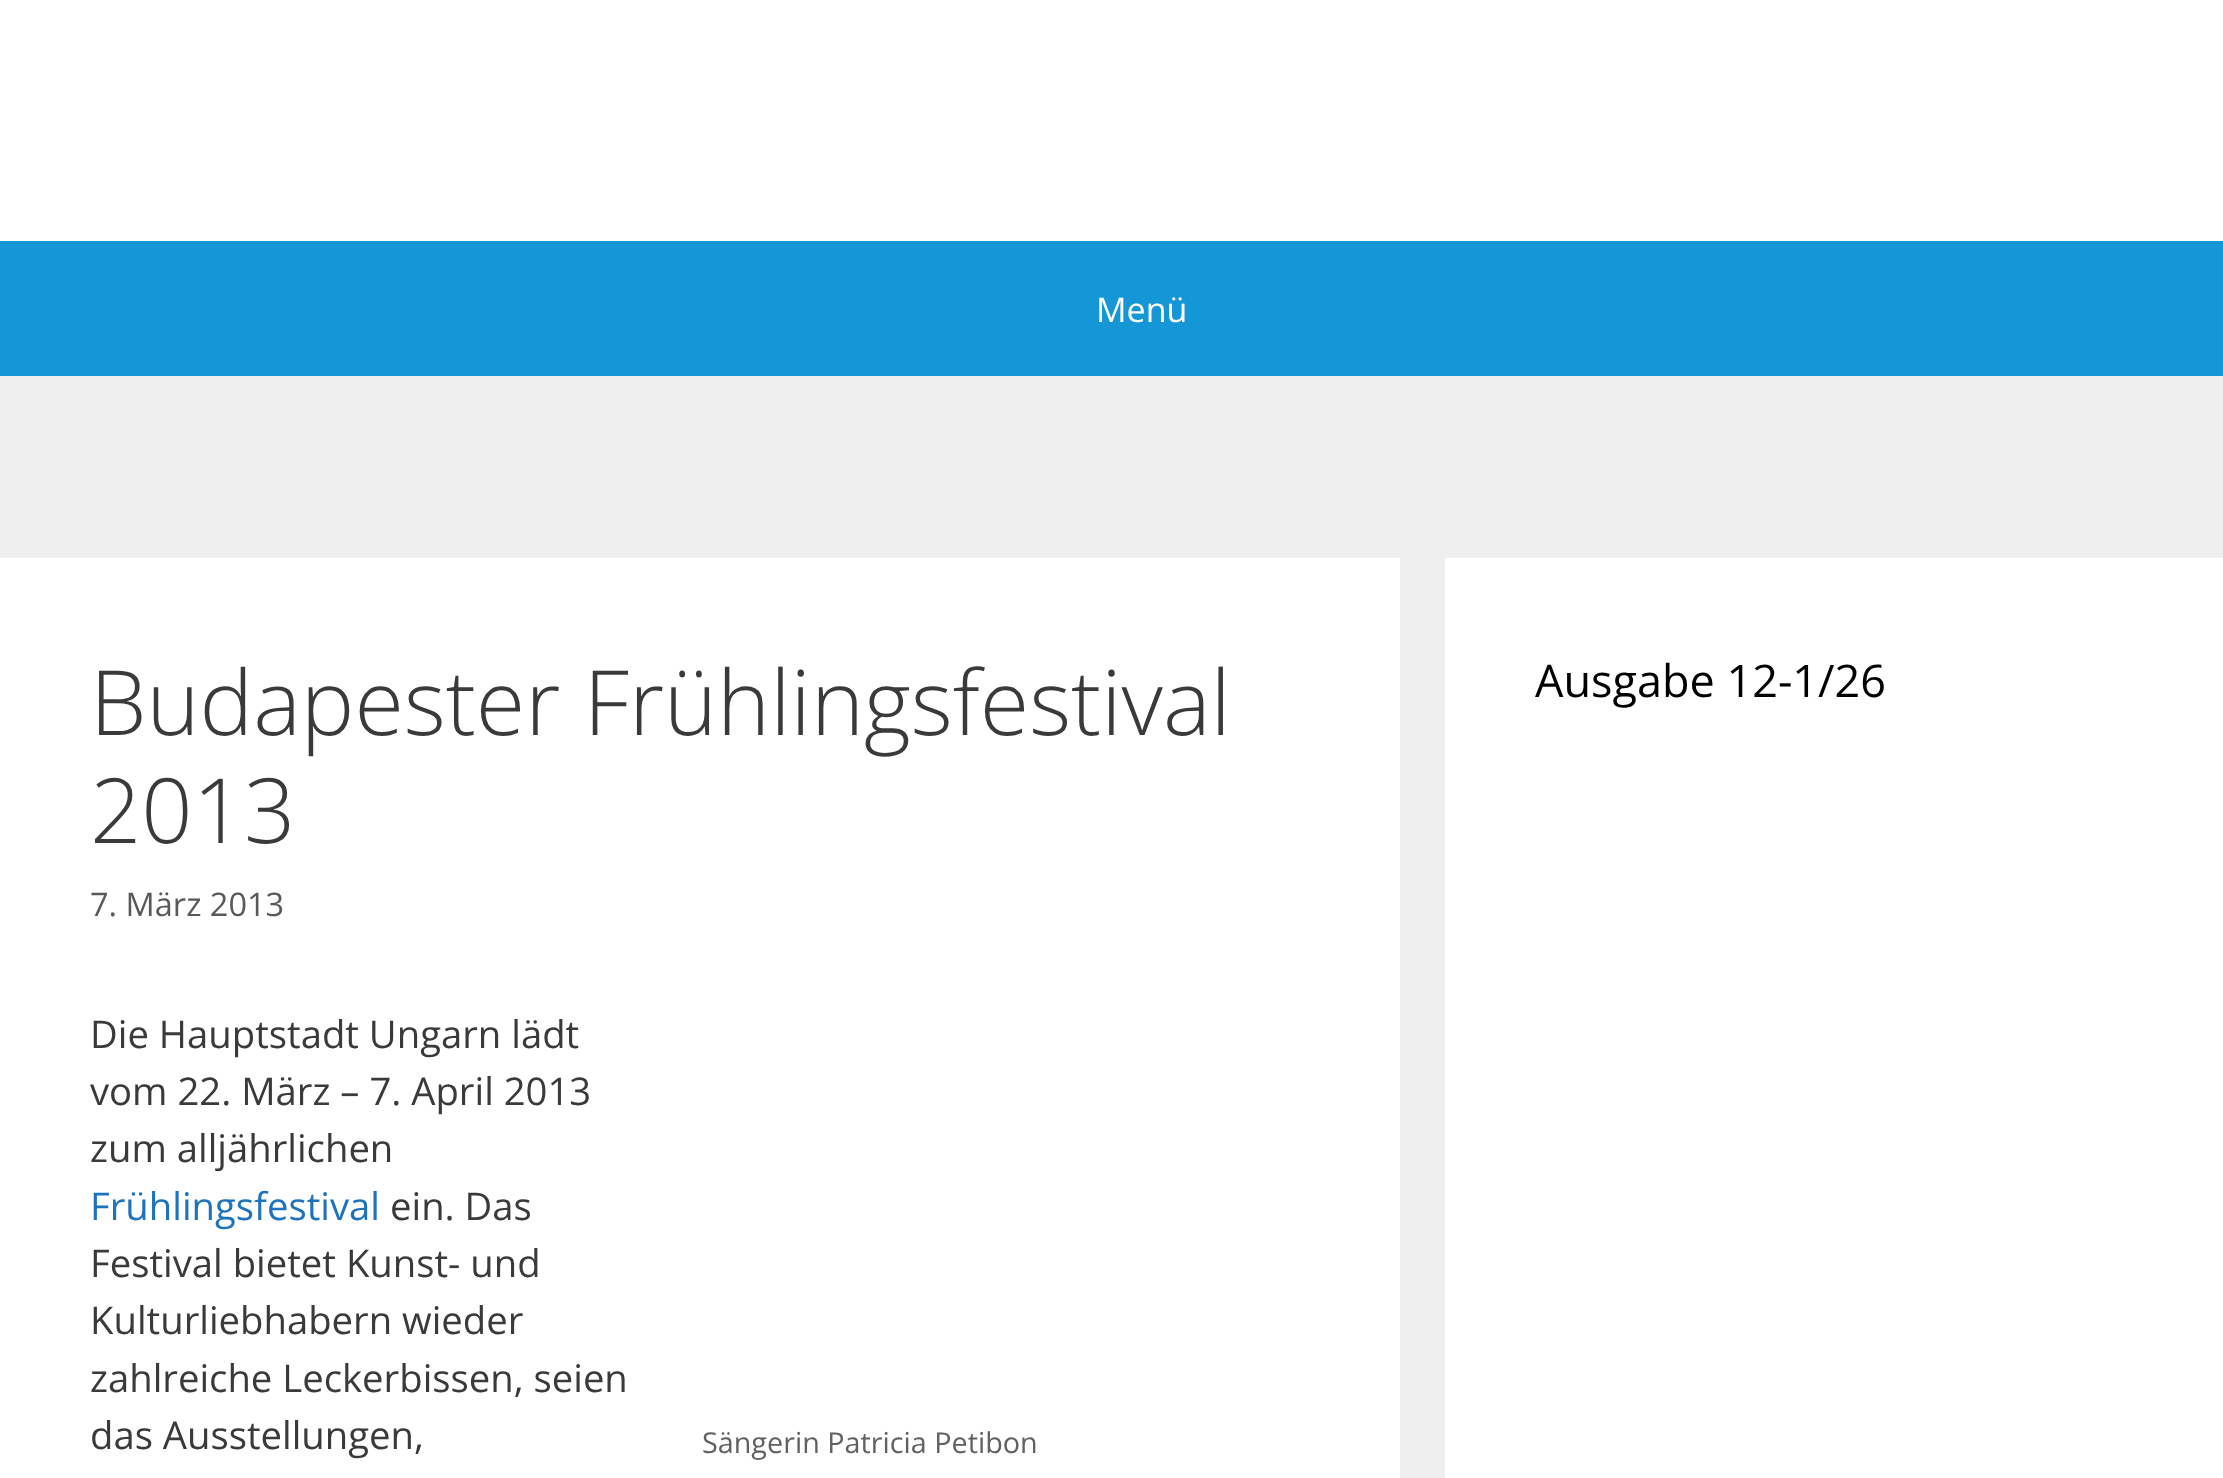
<svg xmlns="http://www.w3.org/2000/svg" width="2223" height="1478" viewBox="0 0 2223 1478">
  <rect width="100%" height="100%" fill="#efefef"/>
  <rect x="0" y="0" width="2223" height="241" fill="#ffffff"/>
  <rect x="0" y="241" width="2223" height="135" fill="#1596d7"/>
  <text x="1096" y="322" font-family="Open Sans" font-size="34" fill="#ffffff">Menü</text>
  <rect x="0" y="558" width="1400" height="920" fill="#ffffff"/>
  <text x="90" y="735" font-family="Open Sans" font-size="90" font-weight="300" fill="#3a3a3a">Budapester Frühlingsfestival</text>
  <text x="90" y="843" font-family="Open Sans" font-size="90" font-weight="300" fill="#3a3a3a">2013</text>
  <text x="90" y="916" font-family="Open Sans" font-size="32.5" fill="#595959">7. März 2013</text>
  <text x="90" y="1048" font-family="Open Sans" font-size="38.25" fill="#3a3a3a">Die Hauptstadt Ungarn lädt</text>
  <text x="90" y="1105" font-family="Open Sans" font-size="38.25" fill="#3a3a3a">vom 22. März – 7. April 2013</text>
  <text x="90" y="1162" font-family="Open Sans" font-size="38.25" fill="#3a3a3a">zum alljährlichen</text>
  <text x="90" y="1220" font-family="Open Sans" font-size="38.25" fill="#1e73be">Frühlingsfestival</text>
  <text x="390" y="1220" font-family="Open Sans" font-size="38.25" fill="#3a3a3a">ein. Das</text>
  <text x="90" y="1277" font-family="Open Sans" font-size="38.25" fill="#3a3a3a">Festival bietet Kunst- und</text>
  <text x="90" y="1334" font-family="Open Sans" font-size="38.25" fill="#3a3a3a">Kulturliebhabern wieder</text>
  <text x="90" y="1392" font-family="Open Sans" font-size="38.25" fill="#3a3a3a">zahlreiche Leckerbissen, seien</text>
  <text x="90" y="1449" font-family="Open Sans" font-size="38.25" fill="#3a3a3a">das Ausstellungen,</text>
  <text x="702" y="1453" font-family="Open Sans" font-size="28.75" fill="#616161">Sängerin Patricia Petibon</text>
  <rect x="1445" y="558" width="778" height="920" fill="#ffffff"/>
  <text x="1535" y="697" font-family="Open Sans" font-size="45" fill="#000000">Ausgabe 12-1/26</text>
</svg>
